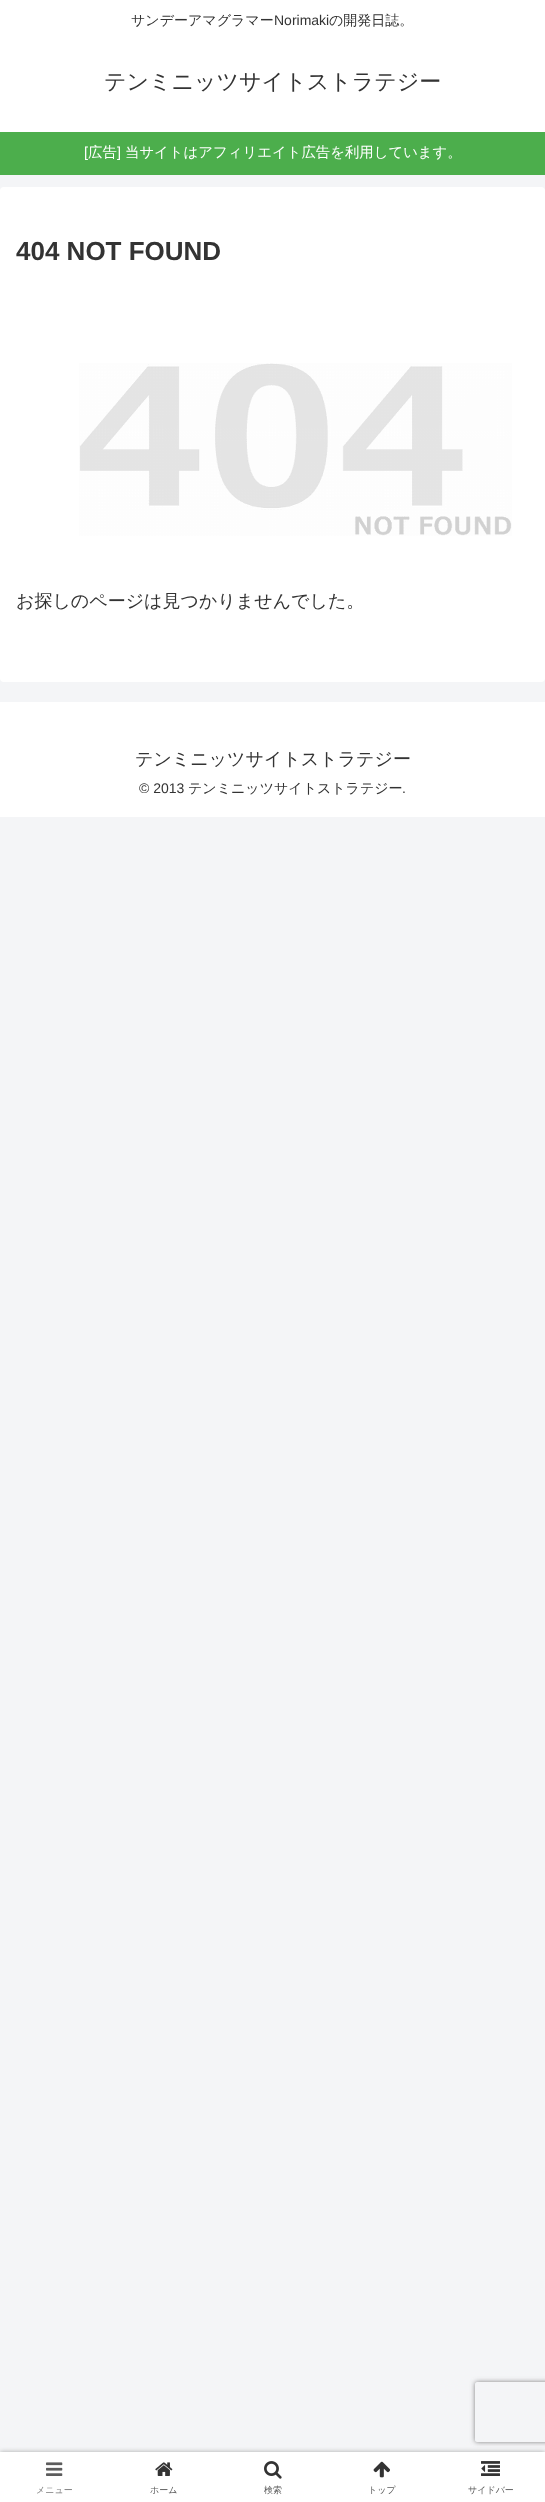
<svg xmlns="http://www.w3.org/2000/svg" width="545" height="2502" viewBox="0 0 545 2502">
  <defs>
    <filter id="blur1" x="-50%" y="-200%" width="200%" height="500%"><feGaussianBlur stdDeviation="2.5"/></filter>
    <clipPath id="clip1"><path d="M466 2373H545V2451H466ZM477 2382H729C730 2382 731 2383 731 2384V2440C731 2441 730 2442 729 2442H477C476 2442 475 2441 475 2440V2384C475 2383 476 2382 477 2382Z" clip-rule="evenodd"/></clipPath>
  </defs>
  <rect width="100%" height="100%" fill="#f4f5f7"/>
  <rect x="0" y="0" width="545" height="132" fill="#ffffff"/>
  <text x="131" y="25" font-family="WenQuanYi Zen Hei" font-size="14" font-weight="500" fill="#333333">サンデーアマグラマー</text>
  <text x="274" y="25" font-family="Liberation Sans" font-size="14" fill="#333333">Norimaki</text>
  <text x="329" y="25" font-family="WenQuanYi Zen Hei" font-size="14" font-weight="500" fill="#333333">の開発日誌。</text>
  <text x="104" y="89" font-family="WenQuanYi Zen Hei" font-size="22" font-weight="500" fill="#333333">テンミニッツサイトストラテジー</text>
  <rect x="0" y="132" width="545" height="43" fill="#4cae4c"/>
  <text x="84" y="157" font-family="Liberation Sans" font-size="14.4" fill="#ffffff">[</text>
  <text x="88" y="157" font-family="WenQuanYi Zen Hei" font-size="14.4" font-weight="500" fill="#ffffff">広告</text>
  <text x="117" y="157" font-family="Liberation Sans" font-size="14.4" fill="#ffffff">]</text>
  <text x="125" y="157" font-family="WenQuanYi Zen Hei" font-size="14.4" font-weight="500" fill="#ffffff">当サイトはアフィリエイト広告を利用しています。</text>
  <rect x="0" y="187" width="545" height="495" rx="4" fill="#ffffff"/>
  <text x="16" y="260" font-family="Liberation Sans" font-size="26" font-weight="bold" fill="#333333">404 NOT FOUND</text>
  <image x="79" y="363" width="433" height="173" href="img1.png"/>
  <text x="16" y="607" font-family="WenQuanYi Zen Hei" font-size="18" font-weight="500" fill="#333333">お探しのページは見つかりませんでした。</text>
  <rect x="0" y="702" width="545" height="115" fill="#ffffff"/>
  <text x="135" y="765" font-family="WenQuanYi Zen Hei" font-size="18" font-weight="500" fill="#333333">テンミニッツサイトストラテジー</text>
  <text x="139" y="793" font-family="Liberation Sans" font-size="14" fill="#333333">© 2013</text>
  <text x="188" y="793" font-family="WenQuanYi Zen Hei" font-size="14" font-weight="500" fill="#333333">テンミニッツサイトストラテジー</text>
  <text x="402" y="793" font-family="Liberation Sans" font-size="14" fill="#333333">.</text>
  <rect x="0" y="2452" width="545" height="50" fill="#a9a9a9" filter="url(#blur1)"/>
  <rect x="0" y="2452" width="545" height="50" fill="#ffffff"/>
  <image x="46" y="2462" width="17" height="14" href="img2.png"/>
  <text x="36" y="2493" font-family="WenQuanYi Zen Hei" font-size="9" font-weight="500" fill="#7c7c7c">メニュー</text>
  <image x="155" y="2462" width="18" height="14" href="img3.png"/>
  <text x="150" y="2493" font-family="WenQuanYi Zen Hei" font-size="9" font-weight="500" fill="#5c5c5c">ホーム</text>
  <image x="264" y="2461" width="18" height="18" href="img4.png"/>
  <text x="264" y="2493" font-family="WenQuanYi Zen Hei" font-size="9" font-weight="500" fill="#5c5c5c">検索</text>
  <image x="373" y="2461" width="17" height="17" href="img5.png"/>
  <text x="368" y="2493" font-family="WenQuanYi Zen Hei" font-size="9" font-weight="500" fill="#5c5c5c">トップ</text>
  <image x="481" y="2461" width="19" height="15" href="img6.png"/>
  <text x="468" y="2493" font-family="WenQuanYi Zen Hei" font-size="9" font-weight="500" fill="#5c5c5c">サイドバー</text>
  <g clip-path="url(#clip1)">
    <rect x="475" y="2382" width="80" height="60" rx="2" fill="#808080" filter="url(#blur1)"/>
  </g>
</svg>
